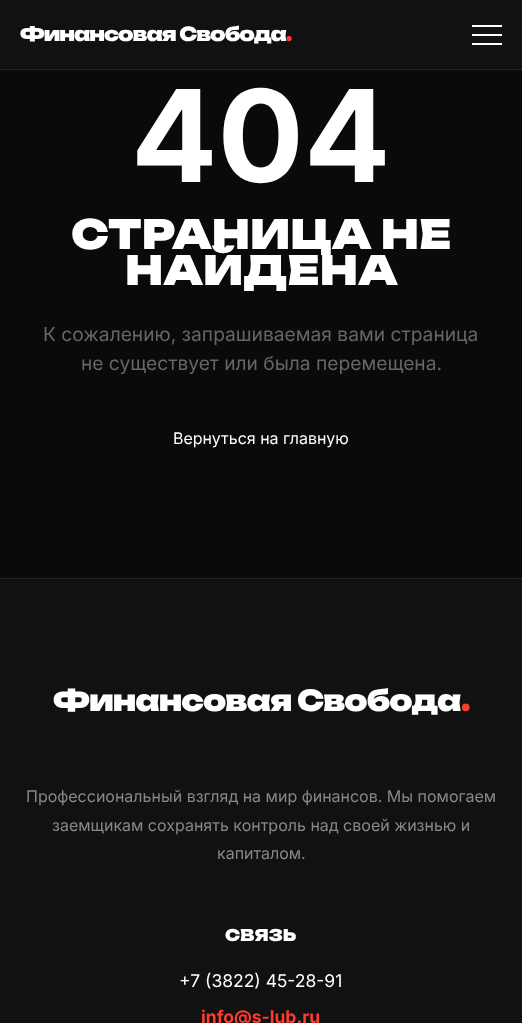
<svg xmlns="http://www.w3.org/2000/svg" width="522" height="1023" viewBox="0 0 522 1023">
  <rect width="100%" height="100%" fill="#0a0a0a"/>
  <rect x="0" y="0" width="522" height="69" fill="#111111"/>
  <rect x="0" y="69" width="522" height="1" fill="#222222"/>
  <text x="20" y="41" font-family="Unbounded" font-size="19.2" font-weight="900" letter-spacing="-1" fill="#ffffff">Финансовая Свобода</text>
  <text x="286" y="41" font-family="Unbounded" font-size="19.2" font-weight="900" letter-spacing="-1" fill="#ff3b30">.</text>
  <rect x="472" y="25" width="30" height="2" fill="#ffffff"/>
  <rect x="472" y="34" width="30" height="2" fill="#ffffff"/>
  <rect x="472" y="43" width="30" height="2" fill="#ffffff"/>
  <text x="131" y="182" font-family="Inter" font-size="128" font-weight="bold" fill="#ffffff">404</text>
  <text x="71" y="249" word-spacing="1" font-family="Unbounded" font-size="40" font-weight="900" fill="#ffffff">СТРАНИЦА НЕ</text>
  <text x="125" y="285" font-family="Unbounded" font-size="40" font-weight="900" fill="#ffffff">НАЙДЕНА</text>
  <text x="43" y="341" font-family="Inter" font-size="19.2" fill="#666666">К сожалению, запрашиваемая вами страница</text>
  <text x="81" y="370" font-family="Inter" font-size="19.2" fill="#666666">не существует или была перемещена.</text>
  <text x="173" y="444" font-family="Inter" font-size="16" fill="#ffffff">Вернуться на главную</text>
  <rect x="0" y="579" width="522" height="444" fill="#111111"/>
  <rect x="0" y="578" width="522" height="1" fill="#222222"/>
  <text x="53" y="711" font-family="Unbounded" font-size="28.75" font-weight="900" letter-spacing="-1" fill="#ffffff">Финансовая Свобода</text>
  <text x="461" y="711" font-family="Unbounded" font-size="28.75" font-weight="900" letter-spacing="-1" fill="#ff3b30">.</text>
  <text x="26" y="802" font-family="Inter" font-size="16" fill="#888888">Профессиональный взгляд на мир финансов. Мы помогаем</text>
  <text x="52" y="831" font-family="Inter" font-size="16" fill="#888888">заемщикам сохранять контроль над своей жизнью и</text>
  <text x="217" y="859" font-family="Inter" font-size="16" fill="#888888">капиталом.</text>
  <text x="225" y="941" font-family="Unbounded" font-size="16" font-weight="900" fill="#ffffff">СВЯЗЬ</text>
  <text x="179" y="987" font-family="Inter" font-size="17.5" fill="#ffffff">+7 (3822) 45-28-91</text>
  <text x="201" y="1023" font-family="Inter" font-size="17.5" font-weight="bold" fill="#ff3b30">info@s-lub.ru</text>
</svg>
